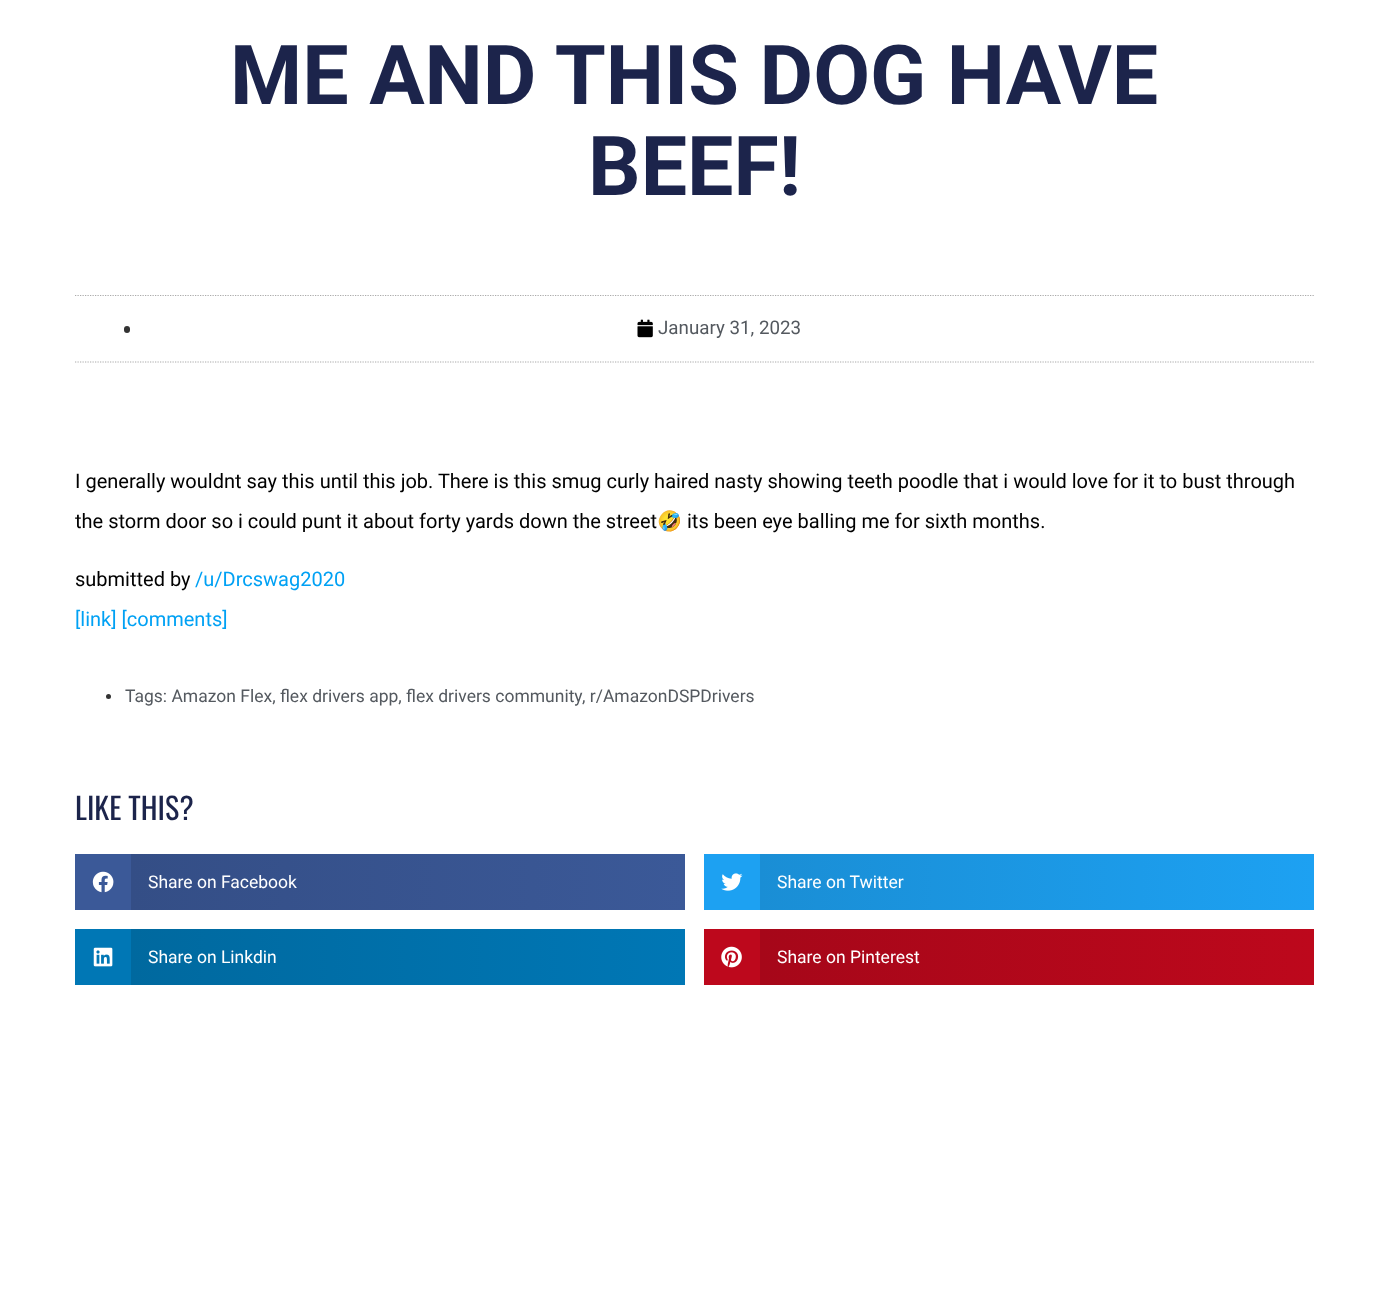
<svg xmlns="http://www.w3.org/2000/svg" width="1388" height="1308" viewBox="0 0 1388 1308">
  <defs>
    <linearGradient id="g1" gradientUnits="userSpaceOnUse" x1="131" y1="882" x2="685" y2="882"><stop offset="0" stop-color="#344e86"/><stop offset="1" stop-color="#3b5998"/></linearGradient>
    <linearGradient id="g2" gradientUnits="userSpaceOnUse" x1="760" y1="882" x2="1314" y2="882"><stop offset="0" stop-color="#1a8ed5"/><stop offset="1" stop-color="#1da1f2"/></linearGradient>
    <linearGradient id="g3" gradientUnits="userSpaceOnUse" x1="131" y1="957" x2="685" y2="957"><stop offset="0" stop-color="#00699f"/><stop offset="1" stop-color="#0077b5"/></linearGradient>
    <linearGradient id="g4" gradientUnits="userSpaceOnUse" x1="760" y1="957" x2="1314" y2="957"><stop offset="0" stop-color="#a60719"/><stop offset="1" stop-color="#bd081c"/></linearGradient>
  </defs>
  <rect width="100%" height="100%" fill="#ffffff"/>
  <text x="230" y="104" font-family="Roboto" font-size="82.5" font-weight="bold" fill="#1c244b">ME AND THIS DOG HAVE</text>
  <text x="588" y="195" font-family="Roboto" font-size="82.5" font-weight="bold" fill="#1c244b">BEEF!</text>
  <path d="M75 295.5H1314" fill="none" stroke="#aaaaaa" stroke-width="1.2" stroke-dasharray="1.25 1.25"/>
  <path d="M75 362H1314" fill="none" stroke="#aaaaaa" stroke-width="1.2" stroke-dasharray="1.25 1.25"/>
  <rect x="124" y="326" width="6" height="7" rx="3" fill="#333333"/>
  <image x="637" y="319" width="16" height="19" href="img1.png"/>
  <text x="658" y="334" font-family="Roboto" font-size="18.75" fill="#54595f">January 31, 2023</text>
  <text x="75" y="488" font-family="Roboto" font-size="20" fill="#000000">I generally wouldnt say this until this job. There is this smug curly haired nasty showing teeth poodle that i would love for it to bust through</text>
  <text x="75" y="528" font-family="Roboto" font-size="20" fill="#000000">the storm door so i could punt it about forty yards down the street</text>
  <text x="657" y="528" font-family="Noto Color Emoji" font-size="20" fill="#000000">🤣</text>
  <text x="687" y="528" font-family="Roboto" font-size="20" fill="#000000">its been eye balling me for sixth months.</text>
  <text x="75" y="586" font-family="Roboto" font-size="20" fill="#000000">submitted by</text>
  <text x="195" y="586" font-family="Roboto" font-size="20" fill="#00a1f4">/u/Drcswag2020</text>
  <text x="75" y="626" font-family="Roboto" font-size="20" fill="#00a1f4">[link] [comments]</text>
  <circle cx="108.5" cy="696.5" r="2.5" fill="#333333"/>
  <text x="125" y="702" font-family="Roboto" font-size="17.5" fill="#54595f">Tags: Amazon Flex, flex drivers app,</text>
  <text x="406" y="702" font-family="Roboto" font-size="17.5" fill="#54595f">flex drivers community</text>
  <text x="582" y="702" font-family="Roboto" font-size="17.5" fill="#54595f">, r/AmazonDSPDrivers</text>
  <text x="75" y="820" font-family="Oswald" font-size="30" fill="#1c244b">LIKE THIS?</text>
  <rect x="75" y="854" width="56" height="56" fill="#3b5998"/>
  <image x="92" y="871" width="22" height="22" href="img2.png"/>
  <rect x="131" y="854" width="554" height="56" fill="url(#g1)"/>
  <text x="148" y="888" font-family="Roboto" font-size="17.5" fill="#ffffff">Share on Facebook</text>
  <rect x="704" y="854" width="56" height="56" fill="#1da1f2"/>
  <image x="721" y="873" width="22" height="18" href="img3.png"/>
  <rect x="760" y="854" width="554" height="56" fill="url(#g2)"/>
  <text x="777" y="888" font-family="Roboto" font-size="17.5" fill="#ffffff">Share on Twitter</text>
  <rect x="75" y="929" width="56" height="56" fill="#0077b5"/>
  <image x="93" y="947" width="20" height="20" href="img4.png"/>
  <rect x="131" y="929" width="554" height="56" fill="url(#g3)"/>
  <text x="148" y="963" font-family="Roboto" font-size="17.5" fill="#ffffff">Share on Linkdin</text>
  <rect x="704" y="929" width="56" height="56" fill="#bd081c"/>
  <image x="721" y="946" width="21" height="22" href="img5.png"/>
  <rect x="760" y="929" width="554" height="56" fill="url(#g4)"/>
  <text x="777" y="963" font-family="Roboto" font-size="17.5" fill="#ffffff">Share on Pinterest</text>
</svg>
